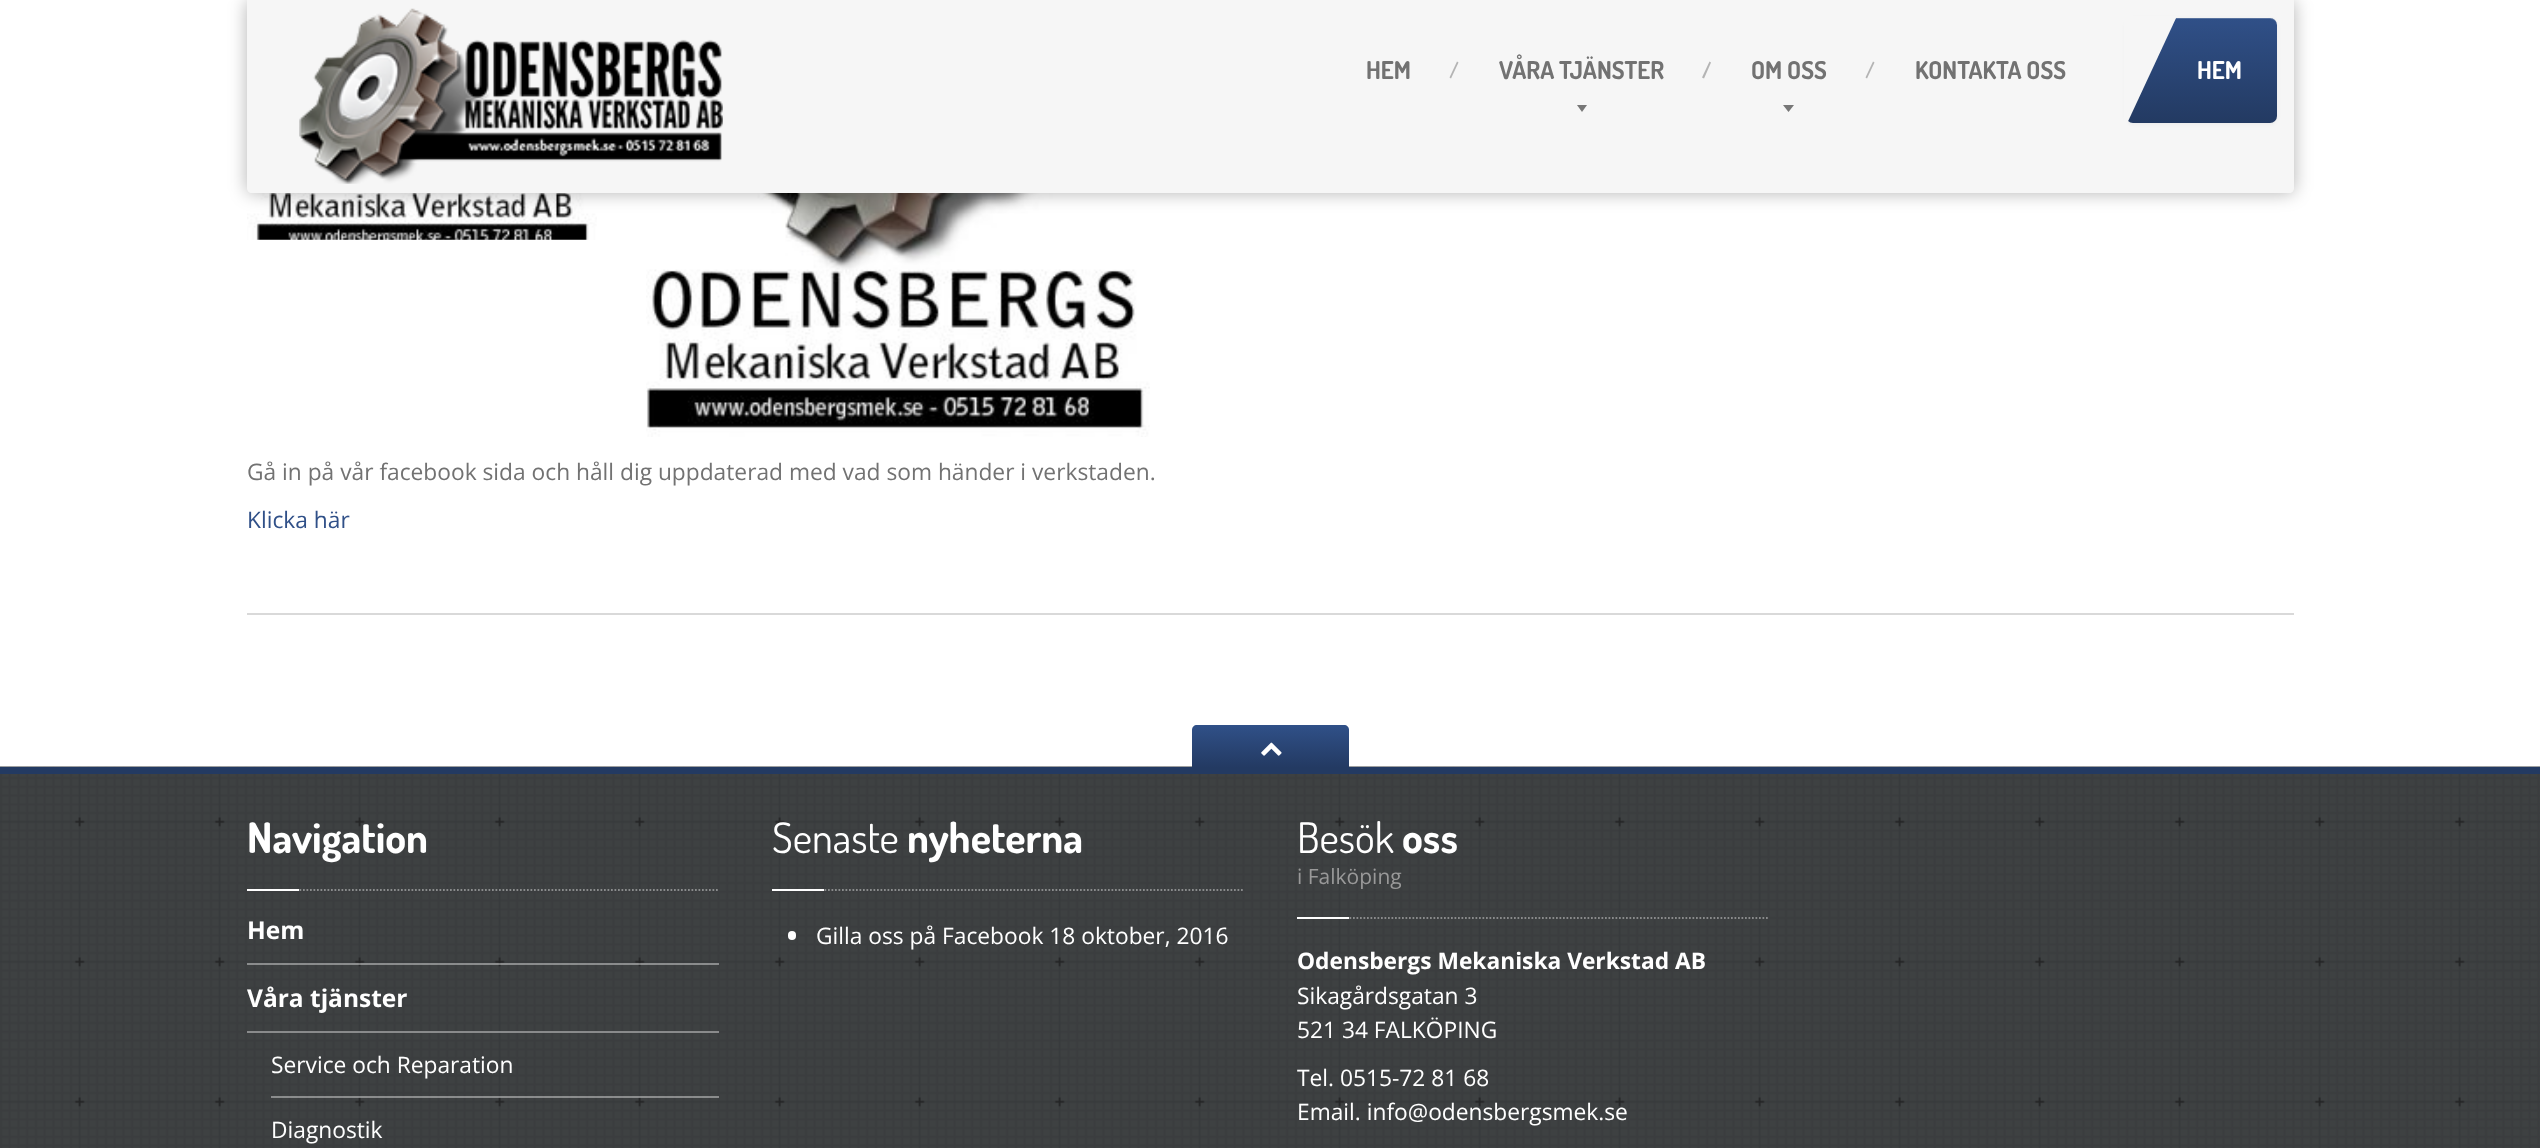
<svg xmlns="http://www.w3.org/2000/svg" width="2540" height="1148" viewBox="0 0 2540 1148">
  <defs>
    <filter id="blur1" x="-50%" y="-200%" width="200%" height="500%"><feGaussianBlur stdDeviation="9"/></filter>
    <filter id="blur2" x="-50%" y="-200%" width="200%" height="500%"><feGaussianBlur stdDeviation="2"/></filter>
    <linearGradient id="g1" gradientUnits="userSpaceOnUse" x1="2202" y1="17" x2="2202" y2="123"><stop offset="0" stop-color="#305088"/><stop offset="1" stop-color="#233a62"/></linearGradient>
    <linearGradient id="g2" gradientUnits="userSpaceOnUse" x1="1271" y1="725" x2="1271" y2="768"><stop offset="0" stop-color="#305088"/><stop offset="1" stop-color="#233a62"/></linearGradient>
  </defs>
  <rect width="100%" height="100%" fill="#ffffff"/>
  <image x="247" y="188" width="350" height="52" href="img2.png"/>
  <image x="646" y="193" width="504" height="244" href="img3.png"/>
  <rect x="247" y="0" width="2047" height="193" rx="5" fill="#000000" fill-opacity="0.3" filter="url(#blur1)"/>
  <path d="M247 0H2294V188C2294 191 2292 193 2289 193H252C249 193 247 191 247 188Z" fill="#f6f6f6"/>
  <image x="299" y="8" width="424" height="176" href="img1.png"/>
  <text x="1366" y="79" font-family="Dosis" font-size="24.5" font-weight="bold" fill="#727272">HEM</text>
  <path d="M1457 61.5L1458.5 62.5L1451 78.5L1449.5 77.5Z" fill="#b4b4b4"/>
  <text x="1499" y="79" font-family="Dosis" font-size="24.5" font-weight="bold" fill="#727272">VÅRA TJÄNSTER</text>
  <path d="M1709.5 61.5L1711 62.5L1704 78.5L1702 77.5Z" fill="#b4b4b4"/>
  <path d="M1577 105H1587L1582 112Z" fill="#777777"/>
  <text x="1751" y="79" font-family="Dosis" font-size="24.5" font-weight="bold" fill="#727272">OM OSS</text>
  <path d="M1873 61.5L1874.5 62.5L1867 78.5L1865.5 77.5Z" fill="#b4b4b4"/>
  <path d="M1783 105H1794L1788.5 112Z" fill="#777777"/>
  <text x="1915" y="79" font-family="Dosis" font-size="24.5" font-weight="bold" fill="#727272">KONTAKTA OSS</text>
  <rect x="2126" y="19" width="151" height="105" rx="7" fill="#000000" fill-opacity="0.05" filter="url(#blur2)"/>
  <rect x="2126" y="18" width="151" height="105" rx="7" fill="url(#g1)"/>
  <path d="M2133 19H2270C2274 19 2277 22 2277 26C2277 12 2253 18 2247 18H2156C2150 18 2126 12 2126 26C2126 22 2129 19 2133 19Z" fill="#ffffff" fill-opacity="0.2"/>
  <path d="M2124 16H2177L2124 130Z" fill="#f6f6f6"/>
  <text x="2197" y="79" font-family="Dosis" font-size="24.5" font-weight="bold" fill="#ffffff">HEM</text>
  <text x="247" y="480" font-family="Open Sans" font-size="22.75" fill="#727272">Gå in på vår facebook sida och håll dig uppdaterad med vad som händer i verkstaden.</text>
  <text x="247" y="528" font-family="Open Sans" font-size="22.75" fill="#305088">Klicka här</text>
  <rect x="247" y="613" width="2047" height="2" fill="#d9d9d9"/>
  <image x="0" y="766" width="2540" height="382" href="img4.png"/>
  <rect x="0" y="767" width="2540" height="7" fill="#233a62"/>
  <path d="M1197 725H1344C1347 725 1349 727 1349 730V768H1192V730C1192 727 1194 725 1197 725Z" fill="url(#g2)"/>
  <image x="1261" y="742" width="21" height="14" href="img5.png"/>
  <path d="M247 890H719" fill="none" stroke="#ffffff" stroke-opacity="0.4" stroke-width="1.8" stroke-dasharray="1.75 1.75"/>
  <text x="247" y="853" font-family="Dosis" font-size="42" font-weight="bold" fill="#ffffff">Navigation</text>
  <rect x="247" y="889" width="52" height="2" fill="#ffffff"/>
  <rect x="247" y="963" width="472" height="2" fill="#ffffff" fill-opacity="0.4"/>
  <text x="247" y="939" font-family="Open Sans" font-size="24.5" font-weight="bold" fill="#ffffff">Hem</text>
  <rect x="247" y="1031" width="472" height="2" fill="#ffffff" fill-opacity="0.4"/>
  <text x="247" y="1007" font-family="Open Sans" font-size="24.5" font-weight="bold" fill="#ffffff">Våra tjänster</text>
  <rect x="271" y="1096" width="448" height="2" fill="#ffffff" fill-opacity="0.4"/>
  <text x="271" y="1073" font-family="Open Sans" font-size="22.75" fill="#ffffff">Service och Reparation</text>
  <text x="271" y="1138" font-family="Open Sans" font-size="22.75" fill="#ffffff">Diagnostik</text>
  <path d="M772 890H1244" fill="none" stroke="#ffffff" stroke-opacity="0.4" stroke-width="1.8" stroke-dasharray="1.75 1.75"/>
  <text x="772" y="853" font-family="Dosis" font-size="42" fill="#ffffff">Senaste</text>
  <text x="907" y="853" font-family="Dosis" font-size="42" font-weight="bold" fill="#ffffff">nyheterna</text>
  <rect x="772" y="889" width="52" height="2" fill="#ffffff"/>
  <rect x="788" y="931" width="8" height="9" rx="4" fill="#ffffff"/>
  <text x="816" y="944" font-family="Open Sans" font-size="22.75" fill="#ffffff">Gilla oss på Facebook 18 oktober, 2016</text>
  <path d="M1297 918H1769" fill="none" stroke="#ffffff" stroke-opacity="0.4" stroke-width="1.8" stroke-dasharray="1.75 1.75"/>
  <text x="1297" y="853" font-family="Dosis" font-size="42" fill="#ffffff">Besök</text>
  <text x="1402" y="853" font-family="Dosis" font-size="42" font-weight="bold" fill="#ffffff">oss</text>
  <text x="1297" y="884" font-family="Open Sans" font-size="21" fill="#999999">i Falköping</text>
  <rect x="1297" y="917" width="52" height="2" fill="#ffffff"/>
  <text x="1297" y="969" font-family="Open Sans" font-size="22.75" font-weight="bold" fill="#ffffff">Odensbergs Mekaniska Verkstad AB</text>
  <text x="1297" y="1004" font-family="Open Sans" font-size="22.75" fill="#ffffff">Sikagårdsgatan 3</text>
  <text x="1297" y="1038" font-family="Open Sans" font-size="22.75" fill="#ffffff">521 34 FALKÖPING</text>
  <text x="1297" y="1086" font-family="Open Sans" font-size="22.75" fill="#ffffff">Tel. 0515-72 81 68</text>
  <text x="1297" y="1120" font-family="Open Sans" font-size="22.75" fill="#ffffff">Email. info@odensbergsmek.se</text>
</svg>
